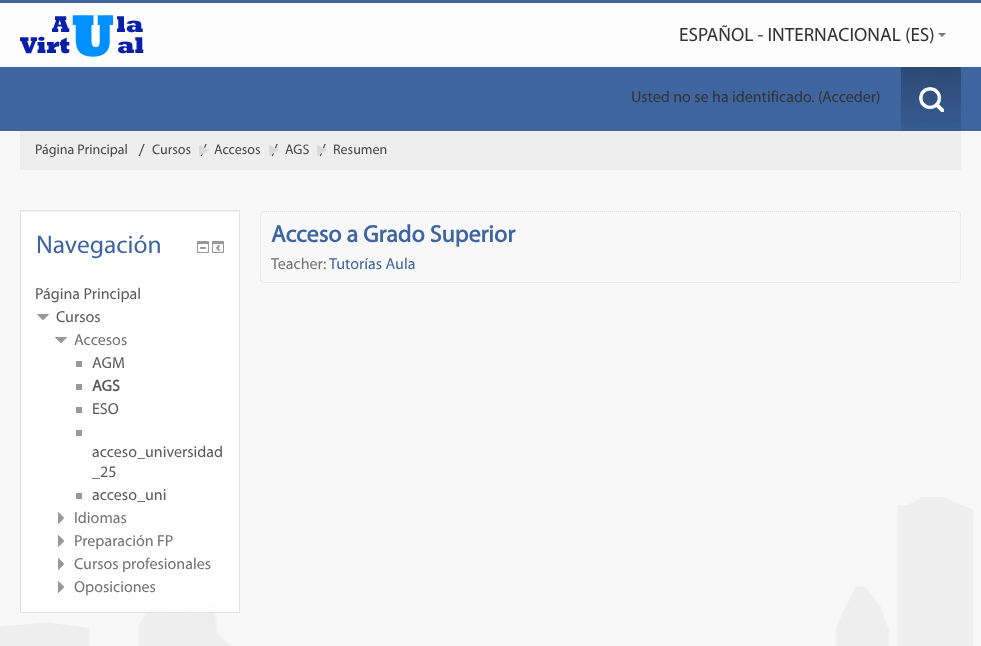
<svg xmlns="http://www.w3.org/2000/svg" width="981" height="646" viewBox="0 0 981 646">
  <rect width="100%" height="100%" fill="#f8f8f8"/>
  <image x="0" y="497" width="974" height="149" href="img1.png"/>
  <rect x="0" y="3" width="981" height="64" fill="#fdfdfd"/>
  <rect x="0" y="0" width="981" height="3" fill="#3e65a0"/>
  <image x="20" y="15" width="124" height="42" href="img2.png"/>
  <text x="679" y="41" font-family="Myriad" font-size="19.25" fill="#343232">ESPAÑOL - INTERNACIONAL (ES)</text>
  <path d="M938 33H946L942 37Z" fill="#777777"/>
  <rect x="0" y="67" width="981" height="64" fill="#3e65a0"/>
  <text x="631" y="102" font-family="Myriad" font-size="16" fill="#343232">Usted no se ha identificado. (</text>
  <text x="822" y="102" font-family="Myriad" font-size="16" fill="#343232">Acceder</text>
  <text x="876" y="102" font-family="Myriad" font-size="16" fill="#343232">)</text>
  <image x="901" y="67" width="60" height="64" href="img3.png"/>
  <rect x="20" y="131" width="941" height="39" fill="#eeeeee"/>
  <text x="35" y="154" font-family="Myriad" font-size="14" fill="#484748">Página Principal</text>
  <image x="138" y="144" width="7" height="12" href="img4.png"/>
  <text x="152" y="154" font-family="Myriad" font-size="14" fill="#484748">Cursos</text>
  <image x="200" y="144" width="7" height="12" href="img4.png"/>
  <text x="199" y="154" font-family="DejaVu Sans" font-size="14" fill="#dadada">▶︎</text>
  <text x="214" y="154" font-family="Myriad" font-size="14" fill="#484748">Accesos</text>
  <image x="271" y="144" width="7" height="12" href="img4.png"/>
  <text x="269" y="154" font-family="DejaVu Sans" font-size="14" fill="#dadada">▶︎</text>
  <text x="285" y="154" font-family="Myriad" font-size="14" fill="#484748">AGS</text>
  <image x="319" y="144" width="7" height="12" href="img4.png"/>
  <text x="317" y="154" font-family="DejaVu Sans" font-size="14" fill="#dadada">▶︎</text>
  <text x="333" y="154" font-family="Myriad" font-size="14" fill="#484748">Resumen</text>
  <rect x="21" y="212" width="218" height="400" fill="#ffffff" fill-opacity="0.78"/>
  <rect x="21" y="211" width="218" height="1" fill="#f1f1f1"/>
  <rect x="20.5" y="210.5" width="219" height="402" fill="none" stroke="#e3e3e3"/>
  <text x="36" y="253" font-family="Myriad" font-size="25.5" fill="#3e65a0">Navegación</text>
  <image x="197" y="241" width="12" height="12" href="img5.png"/>
  <image x="212" y="241" width="12" height="12" href="img6.png"/>
  <text x="35" y="299" font-family="Myriad" font-size="16" fill="#5d5a5a">Página Principal</text>
  <image x="37" y="314" width="12" height="6" href="img7.png"/>
  <text x="56" y="322" font-family="Myriad" font-size="16" fill="#5d5a5a">Cursos</text>
  <image x="55" y="337" width="12" height="6" href="img7.png"/>
  <text x="74" y="345" font-family="Myriad" font-size="16" fill="#727272">Accesos</text>
  <text x="92" y="368" font-family="Myriad" font-size="16" fill="#5d5a5a">AGM</text>
  <rect x="76" y="361" width="6" height="6" fill="#999999"/>
  <text x="92" y="391" font-family="Myriad" font-size="16" font-weight="bold" fill="#5d5a5a">AGS</text>
  <rect x="76" y="384" width="6" height="6" fill="#999999"/>
  <text x="92" y="414" font-family="Myriad" font-size="16" fill="#5d5a5a">ESO</text>
  <rect x="76" y="407" width="6" height="6" fill="#999999"/>
  <text x="92" y="457" font-family="Myriad" font-size="16" fill="#5d5a5a">acceso_universidad</text>
  <rect x="76" y="430" width="6" height="6" fill="#999999"/>
  <text x="92" y="477" font-family="Myriad" font-size="16" fill="#5d5a5a">_25</text>
  <text x="92" y="500" font-family="Myriad" font-size="16" fill="#5d5a5a">acceso_uni</text>
  <rect x="76" y="493" width="6" height="6" fill="#999999"/>
  <image x="58" y="512" width="6" height="12" href="img8.png"/>
  <text x="74" y="523" font-family="Myriad" font-size="16" fill="#727272">Idiomas</text>
  <image x="58" y="535" width="6" height="12" href="img8.png"/>
  <text x="74" y="546" font-family="Myriad" font-size="16" fill="#727272">Preparación FP</text>
  <image x="58" y="558" width="6" height="12" href="img8.png"/>
  <text x="74" y="569" font-family="Myriad" font-size="16" fill="#727272">Cursos profesionales</text>
  <image x="58" y="581" width="6" height="12" href="img8.png"/>
  <text x="74" y="592" font-family="Myriad" font-size="16" fill="#727272">Oposiciones</text>
  <path d="M264 211.5H957C959 211.5 960.5 213 960.5 215V279C960.5 281 959 282.5 957 282.5H264C262 282.5 260.5 281 260.5 279V215C260.5 213 262 211.5 264 211.5Z" fill="none" stroke="#dddddd" stroke-dasharray="1 1"/>
  <text x="271" y="242" font-family="Myriad" font-size="24" font-weight="bold" fill="#3e65a0">Acceso a Grado Superior</text>
  <text x="271" y="269" font-family="Myriad" font-size="16" fill="#727272">Teacher:</text>
  <text x="329" y="269" font-family="Myriad" font-size="16" fill="#3e65a0">Tutorías Aula</text>
</svg>
